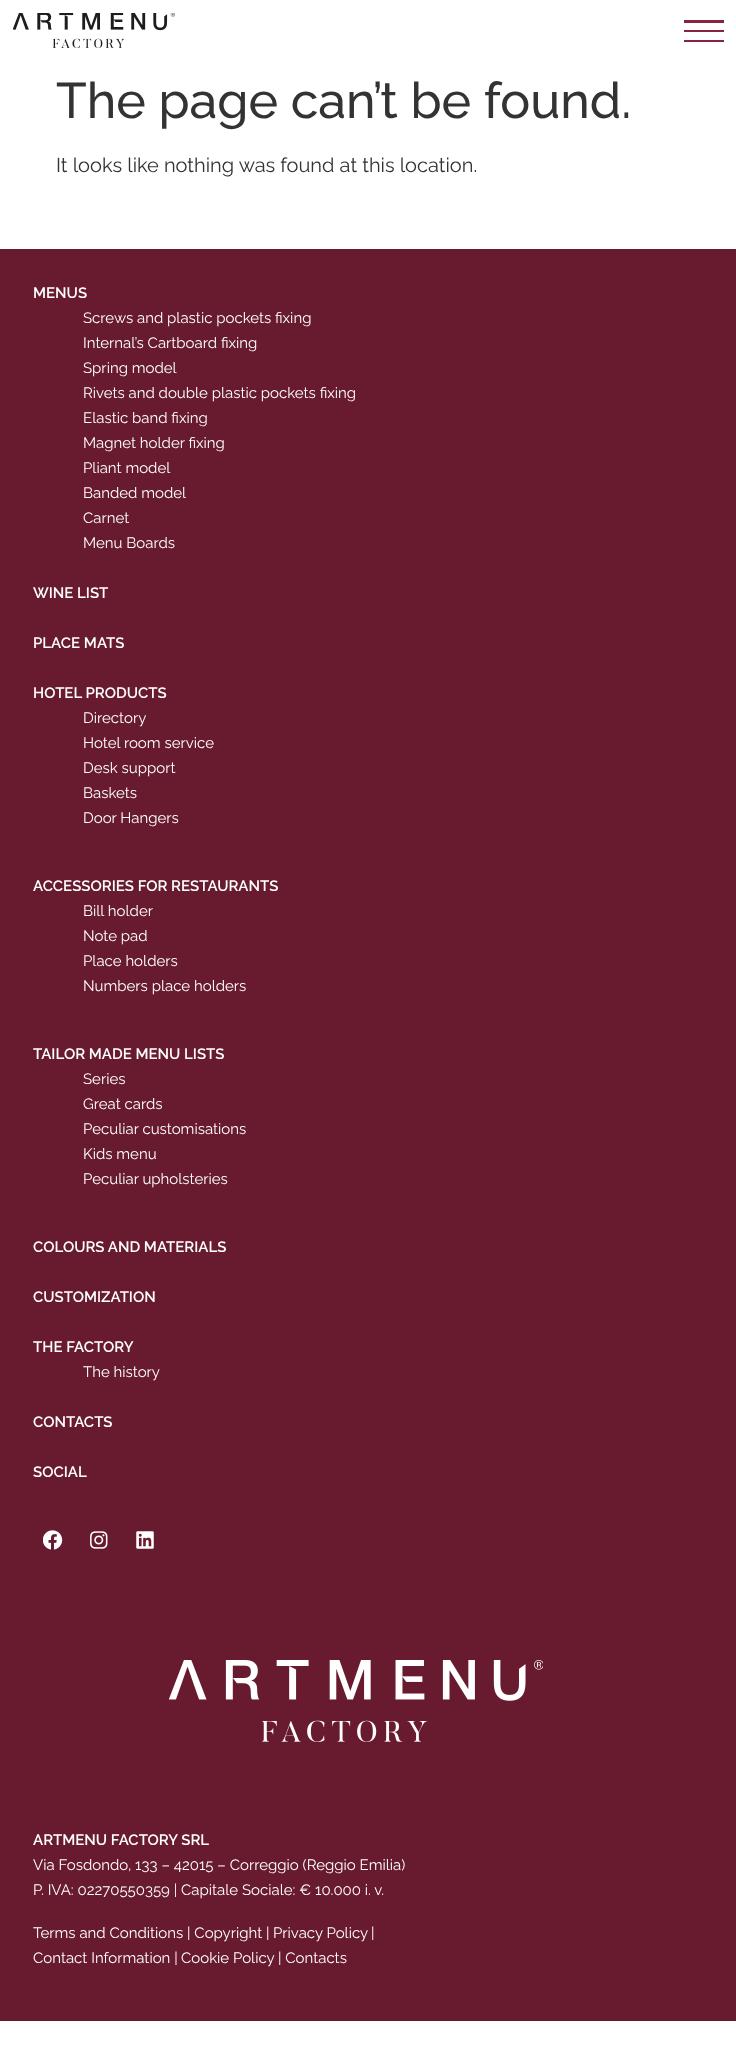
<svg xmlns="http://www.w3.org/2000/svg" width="736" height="2051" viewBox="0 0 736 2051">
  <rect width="100%" height="100%" fill="#ffffff"/>
  <image x="13" y="13" width="162" height="35" href="img1.png"/>
  <rect x="684" y="20" width="40" height="3" fill="#88223f"/>
  <rect x="684" y="30" width="40" height="2" fill="#88223f"/>
  <rect x="684" y="40" width="40" height="2" fill="#88223f"/>
  <text x="56" y="118" font-family="Raleway" font-size="50" font-weight="500" fill="#333333">The page can’t be found.</text>
  <text x="56" y="172" font-family="Raleway" font-size="20" fill="#333333">It looks like nothing was found at this location.</text>
  <rect x="0" y="249" width="736" height="1772" fill="#681b2f"/>
  <text x="33" y="298" font-family="Raleway" font-size="15" font-weight="600" fill="#ffffff">MENUS</text>
  <text x="83" y="323" font-family="Raleway" font-size="15" fill="#ffffff">Screws and plastic pockets fixing</text>
  <text x="83" y="348" font-family="Raleway" font-size="15" fill="#ffffff">Internal’s Cartboard fixing</text>
  <text x="83" y="373" font-family="Raleway" font-size="15" fill="#ffffff">Spring model</text>
  <text x="83" y="398" font-family="Raleway" font-size="15" fill="#ffffff">Rivets and double plastic pockets fixing</text>
  <text x="83" y="423" font-family="Raleway" font-size="15" fill="#ffffff">Elastic band fixing</text>
  <text x="83" y="448" font-family="Raleway" font-size="15" fill="#ffffff">Magnet holder fixing</text>
  <text x="83" y="473" font-family="Raleway" font-size="15" fill="#ffffff">Pliant model</text>
  <text x="83" y="498" font-family="Raleway" font-size="15" fill="#ffffff">Banded model</text>
  <text x="83" y="523" font-family="Raleway" font-size="15" fill="#ffffff">Carnet</text>
  <text x="83" y="548" font-family="Raleway" font-size="15" fill="#ffffff">Menu Boards</text>
  <text x="33" y="598" font-family="Raleway" font-size="15" font-weight="600" fill="#ffffff">WINE LIST</text>
  <text x="33" y="648" font-family="Raleway" font-size="15" font-weight="600" fill="#ffffff">PLACE MATS</text>
  <text x="33" y="698" font-family="Raleway" font-size="15" font-weight="600" fill="#ffffff">HOTEL PRODUCTS</text>
  <text x="83" y="723" font-family="Raleway" font-size="15" fill="#ffffff">Directory</text>
  <text x="83" y="748" font-family="Raleway" font-size="15" fill="#ffffff">Hotel room service</text>
  <text x="83" y="773" font-family="Raleway" font-size="15" fill="#ffffff">Desk support</text>
  <text x="83" y="798" font-family="Raleway" font-size="15" fill="#ffffff">Baskets</text>
  <text x="83" y="823" font-family="Raleway" font-size="15" fill="#ffffff">Door Hangers</text>
  <text x="33" y="891" font-family="Raleway" font-size="15" font-weight="600" fill="#ffffff">ACCESSORIES FOR RESTAURANTS</text>
  <text x="83" y="916" font-family="Raleway" font-size="15" fill="#ffffff">Bill holder</text>
  <text x="83" y="941" font-family="Raleway" font-size="15" fill="#ffffff">Note pad</text>
  <text x="83" y="966" font-family="Raleway" font-size="15" fill="#ffffff">Place holders</text>
  <text x="83" y="991" font-family="Raleway" font-size="15" fill="#ffffff">Numbers place holders</text>
  <text x="33" y="1059" font-family="Raleway" font-size="15" font-weight="600" fill="#ffffff">TAILOR MADE MENU LISTS</text>
  <text x="83" y="1084" font-family="Raleway" font-size="15" fill="#ffffff">Series</text>
  <text x="83" y="1109" font-family="Raleway" font-size="15" fill="#ffffff">Great cards</text>
  <text x="83" y="1134" font-family="Raleway" font-size="15" fill="#ffffff">Peculiar customisations</text>
  <text x="83" y="1159" font-family="Raleway" font-size="15" fill="#ffffff">Kids menu</text>
  <text x="83" y="1184" font-family="Raleway" font-size="15" fill="#ffffff">Peculiar upholsteries</text>
  <text x="33" y="1252" font-family="Raleway" font-size="15" font-weight="600" fill="#ffffff">COLOURS AND MATERIALS</text>
  <text x="33" y="1302" font-family="Raleway" font-size="15" font-weight="600" fill="#ffffff">CUSTOMIZATION</text>
  <text x="33" y="1352" font-family="Raleway" font-size="15" font-weight="600" fill="#ffffff">THE FACTORY</text>
  <text x="83" y="1377" font-family="Raleway" font-size="15" fill="#ffffff">The history</text>
  <text x="33" y="1427" font-family="Raleway" font-size="15" font-weight="600" fill="#ffffff">CONTACTS</text>
  <text x="33" y="1477" font-family="Raleway" font-size="15" font-weight="600" fill="#ffffff">SOCIAL</text>
  <image x="43" y="1530" width="20" height="20" href="img2.png"/>
  <image x="90" y="1531" width="18" height="18" href="img3.png"/>
  <image x="136" y="1531" width="18" height="18" href="img4.png"/>
  <image x="169" y="1660" width="374" height="82" href="img5.png"/>
  <text x="33" y="1845" font-family="Raleway" font-size="15" font-weight="600" fill="#ffffff">ARTMENU FACTORY SRL</text>
  <text x="33" y="1870" font-family="Raleway" font-size="15" fill="#ffffff">Via Fosdondo, 133 – 42015 – Correggio (Reggio Emilia)</text>
  <text x="33" y="1895" font-family="Raleway" font-size="15" fill="#ffffff">P. IVA: 02270550359 | Capitale Sociale: € 10.000 i. v.</text>
  <text x="33" y="1938" font-family="Raleway" font-size="15" fill="#ffffff">Terms and Conditions | Copyright |</text>
  <text x="273" y="1938" font-family="Raleway" font-size="15" fill="#ffffff">Privacy Policy</text>
  <text x="371" y="1938" font-family="Raleway" font-size="15" fill="#ffffff">|</text>
  <text x="33" y="1963" font-family="Raleway" font-size="15" fill="#ffffff">Contact Information |</text>
  <text x="181" y="1963" font-family="Raleway" font-size="15" fill="#ffffff">Cookie Policy</text>
  <text x="278" y="1963" font-family="Raleway" font-size="15" fill="#ffffff">| Contacts</text>
</svg>
